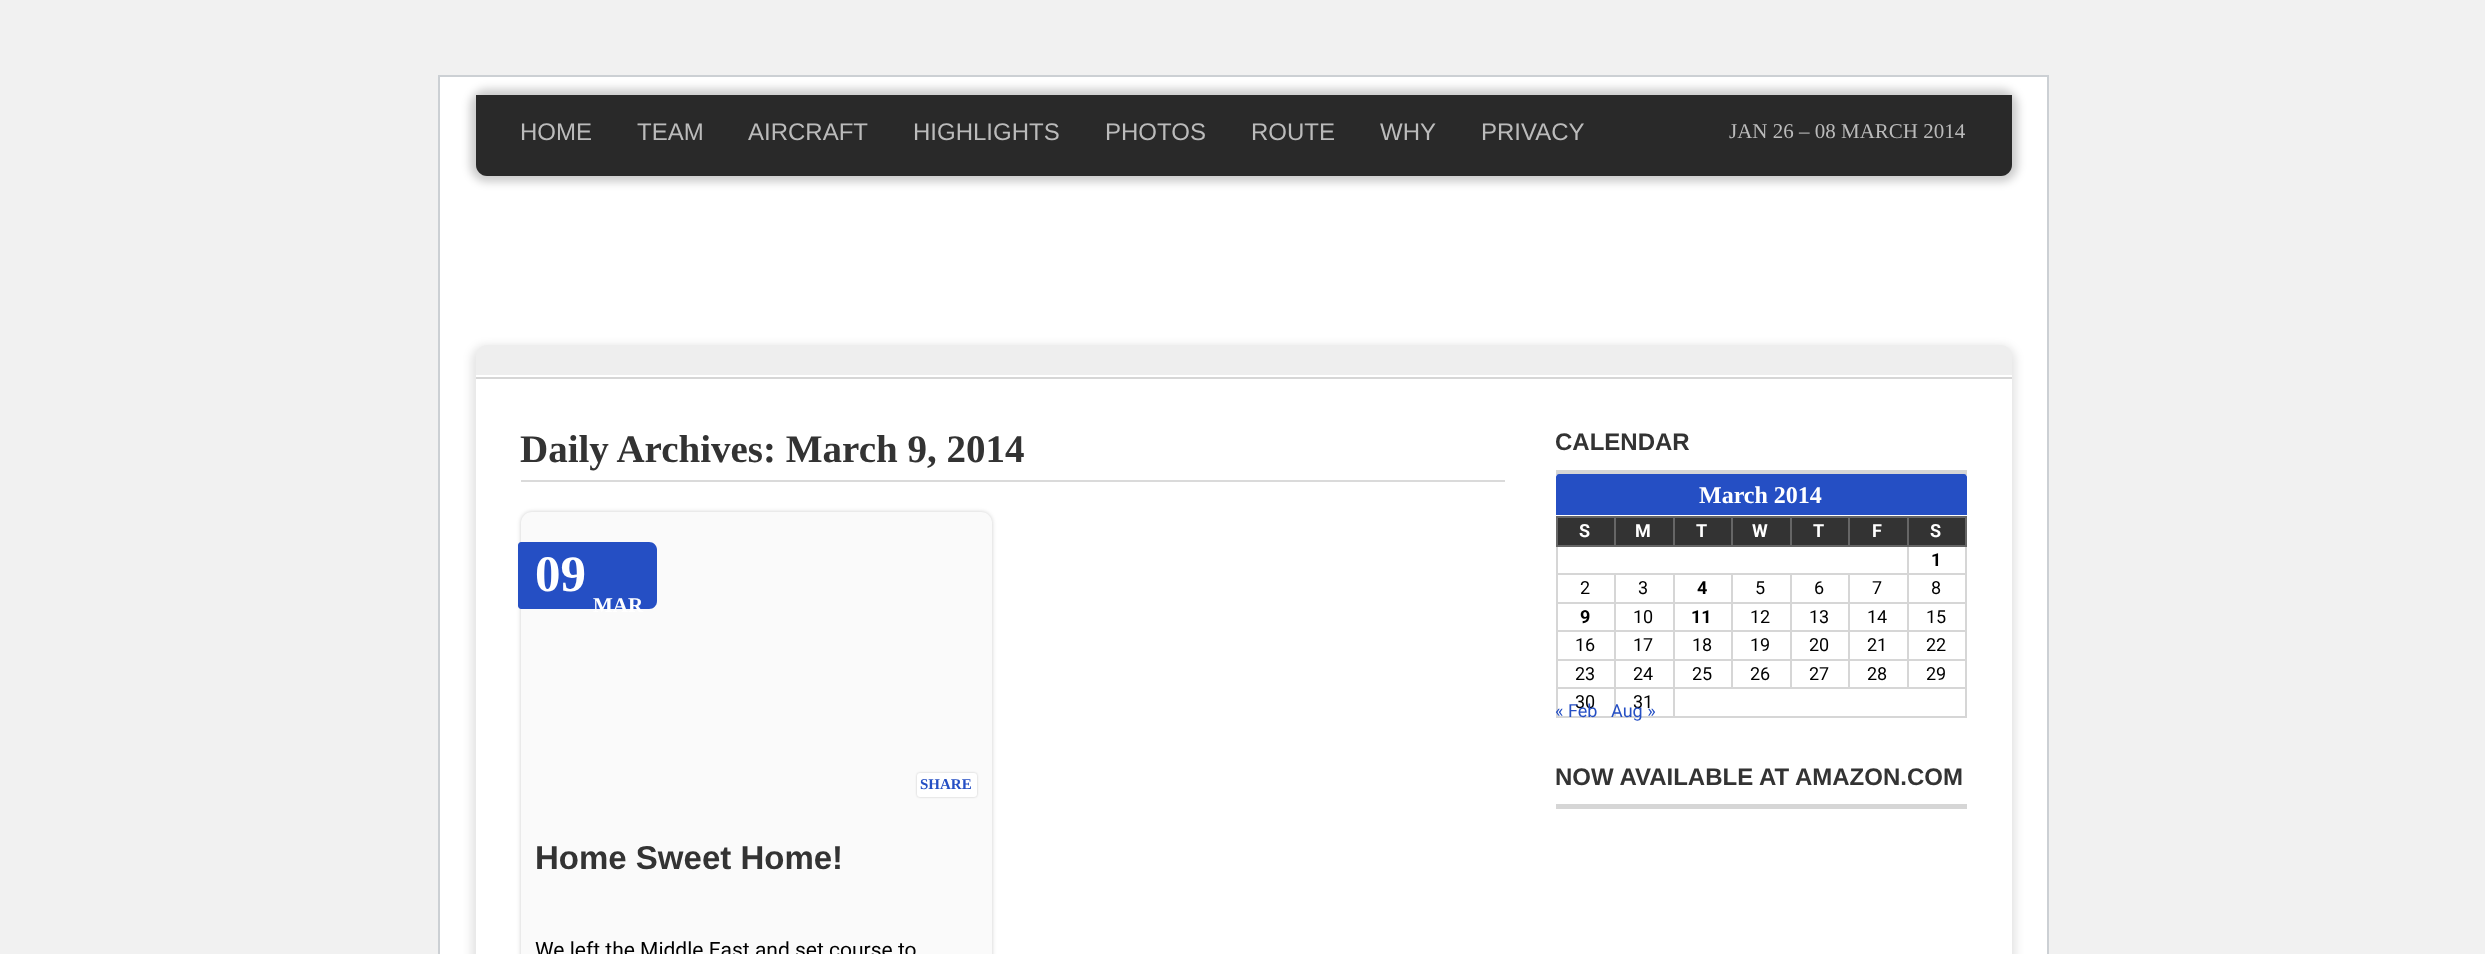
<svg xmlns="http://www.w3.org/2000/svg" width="2485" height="954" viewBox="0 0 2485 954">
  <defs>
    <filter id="blur1" x="-50%" y="-200%" width="200%" height="500%"><feGaussianBlur stdDeviation="4.5"/></filter>
    <filter id="blur2" x="-50%" y="-200%" width="200%" height="500%"><feGaussianBlur stdDeviation="4"/></filter>
    <filter id="blur3" x="-50%" y="-200%" width="200%" height="500%"><feGaussianBlur stdDeviation="2"/></filter>
    <filter id="blur4" x="-50%" y="-200%" width="200%" height="500%"><feGaussianBlur stdDeviation="1"/></filter>
  </defs>
  <rect width="100%" height="100%" fill="#f1f1f1"/>
  <rect x="439" y="76" width="1609" height="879" fill="#ffffff" stroke="#ccd0d4" stroke-width="2"/>
  <rect x="470" y="89" width="1548" height="93" rx="17" fill="#000000" fill-opacity="0.2" filter="url(#blur1)"/>
  <path d="M476 95H2012V165C2012 171 2007 176 2001 176H487C481 176 476 171 476 165Z" fill="#292929"/>
  <text x="520" y="140" font-family="Liberation Sans" font-size="24" fill="#bbbbbb">HOME</text>
  <text x="637" y="140" font-family="Liberation Sans" font-size="24" fill="#bbbbbb">TEAM</text>
  <text x="748" y="140" font-family="Liberation Sans" font-size="24" fill="#bbbbbb">AIRCRAFT</text>
  <text x="913" y="140" font-family="Liberation Sans" font-size="24" fill="#bbbbbb">HIGHLIGHTS</text>
  <text x="1105" y="140" font-family="Liberation Sans" font-size="24" fill="#bbbbbb">PHOTOS</text>
  <text x="1251" y="140" font-family="Liberation Sans" font-size="24" fill="#bbbbbb">ROUTE</text>
  <text x="1380" y="140" font-family="Liberation Sans" font-size="24" fill="#bbbbbb">WHY</text>
  <text x="1481" y="140" font-family="Liberation Sans" font-size="24" fill="#bbbbbb">PRIVACY</text>
  <text x="1729" y="138" font-family="Liberation Serif" font-size="21" fill="#bbbbbb">JAN 26 – 08 MARCH 2014</text>
  <rect x="471" y="345" width="1545" height="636" rx="15" fill="#000000" fill-opacity="0.1" filter="url(#blur2)"/>
  <path d="M487 345H2001C2007 345 2012 350 2012 356V377H476V356C476 350 481 345 487 345Z" fill="#eeeeee"/>
  <rect x="476" y="375" width="1536" height="2" fill="#ffffff"/>
  <rect x="476" y="379" width="1536" height="575" fill="#ffffff"/>
  <rect x="476" y="377" width="1536" height="2" fill="#d6d6d6"/>
  <rect x="521" y="480" width="984" height="2" fill="#dadada"/>
  <text x="520" y="462" font-family="Liberation Serif" font-size="39" font-weight="bold" fill="#333333">Daily Archives: March 9, 2014</text>
  <rect x="521" y="512" width="471" height="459" rx="11" fill="#000000" fill-opacity="0.2" filter="url(#blur3)"/>
  <rect x="521" y="512" width="471" height="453" rx="11" fill="#fafafa"/>
  <path d="M521 542H649C653.5 542 657 545.5 657 550V601C657 605.5 653.5 609 649 609H521C519.5 609 518 607.5 518 606V545C518 543.5 519.5 542 521 542Z" fill="#254fc4"/>
  <text x="535" y="591" font-family="Liberation Serif" font-size="51" font-weight="bold" fill="#ffffff">09</text>
  <text x="593" y="612" font-family="Liberation Serif" font-size="21" font-weight="bold" fill="#ffffff">MAR</text>
  <rect x="917" y="773" width="60" height="24" rx="3" fill="#000000" fill-opacity="0.2" filter="url(#blur4)"/>
  <rect x="917" y="773" width="60" height="24" rx="3" fill="#ffffff"/>
  <text x="920" y="789" font-family="Liberation Serif" font-size="15" font-weight="bold" fill="#254fc4">SHARE</text>
  <text x="535" y="869" font-family="Liberation Sans" font-size="33" font-weight="bold" fill="#333333">Home Sweet Home!</text>
  <text x="535" y="957" font-family="Roboto" font-size="21" fill="#000000">We left the Middle East and set course to</text>
  <rect x="1556" y="470" width="411" height="5" fill="#d6d6d6"/>
  <text x="1555" y="450" font-family="Liberation Sans" font-size="24" font-weight="bold" fill="#333333">CALENDAR</text>
  <path d="M1559 474H1964C1965.5 474 1967 475.5 1967 477V515H1556V477C1556 475.5 1557.5 474 1559 474Z" fill="#254fc4"/>
  <text x="1699" y="503" font-family="Liberation Serif" font-size="24" font-weight="bold" fill="#ffffff">March 2014</text>
  <rect x="1558" y="518" width="56" height="27" fill="#333333"/>
  <rect x="1907" y="516" width="60" height="2" fill="#666666"/>
  <rect x="1907" y="573" width="60" height="2" fill="#d6d6d6"/>
  <rect x="1907" y="602" width="60" height="2" fill="#d6d6d6"/>
  <rect x="1907" y="630" width="60" height="2" fill="#d6d6d6"/>
  <rect x="1907" y="659" width="60" height="2" fill="#d6d6d6"/>
  <rect x="1673" y="687" width="294" height="2" fill="#d6d6d6"/>
  <rect x="1965" y="687" width="2" height="30" fill="#d6d6d6"/>
  <rect x="1965" y="659" width="2" height="30" fill="#d6d6d6"/>
  <rect x="1965" y="630" width="2" height="30" fill="#d6d6d6"/>
  <rect x="1965" y="602" width="2" height="30" fill="#d6d6d6"/>
  <rect x="1965" y="545" width="2" height="58" fill="#d6d6d6"/>
  <rect x="1965" y="516" width="2" height="30" fill="#666666"/>
  <rect x="1907" y="659" width="2" height="30" fill="#d6d6d6"/>
  <rect x="1848" y="659" width="60" height="2" fill="#d6d6d6"/>
  <rect x="1907" y="630" width="2" height="30" fill="#d6d6d6"/>
  <rect x="1848" y="630" width="60" height="2" fill="#d6d6d6"/>
  <rect x="1907" y="602" width="2" height="30" fill="#d6d6d6"/>
  <rect x="1848" y="602" width="60" height="2" fill="#d6d6d6"/>
  <rect x="1907" y="573" width="2" height="30" fill="#d6d6d6"/>
  <rect x="1848" y="573" width="60" height="2" fill="#d6d6d6"/>
  <rect x="1907" y="545" width="2" height="30" fill="#d6d6d6"/>
  <rect x="1907" y="545" width="60" height="2" fill="#666666"/>
  <rect x="1907" y="516" width="2" height="30" fill="#666666"/>
  <rect x="1848" y="516" width="60" height="2" fill="#666666"/>
  <rect x="1848" y="545" width="60" height="2" fill="#666666"/>
  <rect x="1848" y="516" width="2" height="30" fill="#666666"/>
  <rect x="1790" y="516" width="60" height="2" fill="#666666"/>
  <rect x="1790" y="545" width="60" height="2" fill="#666666"/>
  <rect x="1790" y="516" width="2" height="30" fill="#666666"/>
  <rect x="1731" y="516" width="60" height="2" fill="#666666"/>
  <rect x="1731" y="545" width="60" height="2" fill="#666666"/>
  <rect x="1731" y="516" width="2" height="30" fill="#666666"/>
  <rect x="1673" y="516" width="60" height="2" fill="#666666"/>
  <rect x="1673" y="545" width="60" height="2" fill="#666666"/>
  <rect x="1673" y="516" width="2" height="30" fill="#666666"/>
  <rect x="1614" y="516" width="60" height="2" fill="#666666"/>
  <rect x="1614" y="545" width="60" height="2" fill="#666666"/>
  <rect x="1614" y="516" width="2" height="30" fill="#666666"/>
  <rect x="1556" y="516" width="60" height="2" fill="#666666"/>
  <rect x="1848" y="659" width="2" height="30" fill="#d6d6d6"/>
  <rect x="1790" y="659" width="60" height="2" fill="#d6d6d6"/>
  <rect x="1848" y="630" width="2" height="30" fill="#d6d6d6"/>
  <rect x="1790" y="630" width="60" height="2" fill="#d6d6d6"/>
  <rect x="1848" y="602" width="2" height="30" fill="#d6d6d6"/>
  <rect x="1790" y="602" width="60" height="2" fill="#d6d6d6"/>
  <rect x="1848" y="573" width="2" height="30" fill="#d6d6d6"/>
  <rect x="1790" y="573" width="60" height="2" fill="#d6d6d6"/>
  <rect x="1790" y="659" width="2" height="30" fill="#d6d6d6"/>
  <rect x="1731" y="659" width="60" height="2" fill="#d6d6d6"/>
  <rect x="1790" y="630" width="2" height="30" fill="#d6d6d6"/>
  <rect x="1731" y="630" width="60" height="2" fill="#d6d6d6"/>
  <rect x="1790" y="602" width="2" height="30" fill="#d6d6d6"/>
  <rect x="1731" y="602" width="60" height="2" fill="#d6d6d6"/>
  <rect x="1790" y="573" width="2" height="30" fill="#d6d6d6"/>
  <rect x="1731" y="573" width="60" height="2" fill="#d6d6d6"/>
  <rect x="1731" y="659" width="2" height="30" fill="#d6d6d6"/>
  <rect x="1673" y="659" width="60" height="2" fill="#d6d6d6"/>
  <rect x="1731" y="630" width="2" height="30" fill="#d6d6d6"/>
  <rect x="1673" y="630" width="60" height="2" fill="#d6d6d6"/>
  <rect x="1731" y="602" width="2" height="30" fill="#d6d6d6"/>
  <rect x="1673" y="602" width="60" height="2" fill="#d6d6d6"/>
  <rect x="1731" y="573" width="2" height="30" fill="#d6d6d6"/>
  <rect x="1673" y="573" width="60" height="2" fill="#d6d6d6"/>
  <rect x="1673" y="716" width="294" height="2" fill="#d6d6d6"/>
  <rect x="1673" y="687" width="2" height="30" fill="#d6d6d6"/>
  <rect x="1614" y="687" width="60" height="2" fill="#d6d6d6"/>
  <rect x="1673" y="659" width="2" height="30" fill="#d6d6d6"/>
  <rect x="1614" y="659" width="60" height="2" fill="#d6d6d6"/>
  <rect x="1673" y="630" width="2" height="30" fill="#d6d6d6"/>
  <rect x="1614" y="630" width="60" height="2" fill="#d6d6d6"/>
  <rect x="1673" y="602" width="2" height="30" fill="#d6d6d6"/>
  <rect x="1614" y="602" width="60" height="2" fill="#d6d6d6"/>
  <rect x="1673" y="573" width="2" height="30" fill="#d6d6d6"/>
  <rect x="1614" y="573" width="60" height="2" fill="#d6d6d6"/>
  <rect x="1614" y="716" width="60" height="2" fill="#d6d6d6"/>
  <rect x="1614" y="687" width="2" height="30" fill="#d6d6d6"/>
  <rect x="1556" y="687" width="60" height="2" fill="#d6d6d6"/>
  <rect x="1614" y="659" width="2" height="30" fill="#d6d6d6"/>
  <rect x="1556" y="659" width="60" height="2" fill="#d6d6d6"/>
  <rect x="1614" y="630" width="2" height="30" fill="#d6d6d6"/>
  <rect x="1556" y="630" width="60" height="2" fill="#d6d6d6"/>
  <rect x="1614" y="602" width="2" height="30" fill="#d6d6d6"/>
  <rect x="1556" y="602" width="60" height="2" fill="#d6d6d6"/>
  <rect x="1614" y="573" width="2" height="30" fill="#d6d6d6"/>
  <rect x="1556" y="573" width="60" height="2" fill="#d6d6d6"/>
  <rect x="1556" y="716" width="60" height="2" fill="#d6d6d6"/>
  <rect x="1556" y="687" width="2" height="30" fill="#d6d6d6"/>
  <rect x="1556" y="659" width="2" height="30" fill="#d6d6d6"/>
  <rect x="1556" y="630" width="2" height="30" fill="#d6d6d6"/>
  <rect x="1556" y="602" width="2" height="30" fill="#d6d6d6"/>
  <rect x="1556" y="545" width="2" height="58" fill="#d6d6d6"/>
  <rect x="1556" y="545" width="60" height="2" fill="#666666"/>
  <rect x="1556" y="516" width="2" height="30" fill="#666666"/>
  <text x="1579" y="537" font-family="Roboto" font-size="18" font-weight="bold" fill="#ffffff">S</text>
  <rect x="1616" y="518" width="57" height="27" fill="#333333"/>
  <text x="1635" y="537" font-family="Roboto" font-size="18" font-weight="bold" fill="#ffffff">M</text>
  <rect x="1675" y="518" width="56" height="27" fill="#333333"/>
  <text x="1696" y="537" font-family="Roboto" font-size="18" font-weight="bold" fill="#ffffff">T</text>
  <rect x="1733" y="518" width="57" height="27" fill="#333333"/>
  <text x="1752" y="537" font-family="Roboto" font-size="18" font-weight="bold" fill="#ffffff">W</text>
  <rect x="1792" y="518" width="56" height="27" fill="#333333"/>
  <text x="1813" y="537" font-family="Roboto" font-size="18" font-weight="bold" fill="#ffffff">T</text>
  <rect x="1850" y="518" width="57" height="27" fill="#333333"/>
  <text x="1872" y="537" font-family="Roboto" font-size="18" font-weight="bold" fill="#ffffff">F</text>
  <rect x="1909" y="518" width="56" height="27" fill="#333333"/>
  <text x="1930" y="537" font-family="Roboto" font-size="18" font-weight="bold" fill="#ffffff">S</text>
  <text x="1931" y="566" font-family="Roboto" font-size="18" font-weight="bold" fill="#000000">1</text>
  <text x="1580" y="594" font-family="Roboto" font-size="18" fill="#000000">2</text>
  <text x="1638" y="594" font-family="Roboto" font-size="18" fill="#000000">3</text>
  <text x="1697" y="594" font-family="Roboto" font-size="18" font-weight="bold" fill="#000000">4</text>
  <text x="1755" y="594" font-family="Roboto" font-size="18" fill="#000000">5</text>
  <text x="1814" y="594" font-family="Roboto" font-size="18" fill="#000000">6</text>
  <text x="1872" y="594" font-family="Roboto" font-size="18" fill="#000000">7</text>
  <text x="1931" y="594" font-family="Roboto" font-size="18" fill="#000000">8</text>
  <text x="1580" y="623" font-family="Roboto" font-size="18" font-weight="bold" fill="#000000">9</text>
  <text x="1633" y="623" font-family="Roboto" font-size="18" fill="#000000">10</text>
  <text x="1691" y="623" font-family="Roboto" font-size="18" font-weight="bold" fill="#000000">11</text>
  <text x="1750" y="623" font-family="Roboto" font-size="18" fill="#000000">12</text>
  <text x="1809" y="623" font-family="Roboto" font-size="18" fill="#000000">13</text>
  <text x="1867" y="623" font-family="Roboto" font-size="18" fill="#000000">14</text>
  <text x="1926" y="623" font-family="Roboto" font-size="18" fill="#000000">15</text>
  <text x="1575" y="651" font-family="Roboto" font-size="18" fill="#000000">16</text>
  <text x="1633" y="651" font-family="Roboto" font-size="18" fill="#000000">17</text>
  <text x="1692" y="651" font-family="Roboto" font-size="18" fill="#000000">18</text>
  <text x="1750" y="651" font-family="Roboto" font-size="18" fill="#000000">19</text>
  <text x="1809" y="651" font-family="Roboto" font-size="18" fill="#000000">20</text>
  <text x="1867" y="651" font-family="Roboto" font-size="18" fill="#000000">21</text>
  <text x="1926" y="651" font-family="Roboto" font-size="18" fill="#000000">22</text>
  <text x="1575" y="680" font-family="Roboto" font-size="18" fill="#000000">23</text>
  <text x="1633" y="680" font-family="Roboto" font-size="18" fill="#000000">24</text>
  <text x="1692" y="680" font-family="Roboto" font-size="18" fill="#000000">25</text>
  <text x="1750" y="680" font-family="Roboto" font-size="18" fill="#000000">26</text>
  <text x="1809" y="680" font-family="Roboto" font-size="18" fill="#000000">27</text>
  <text x="1867" y="680" font-family="Roboto" font-size="18" fill="#000000">28</text>
  <text x="1926" y="680" font-family="Roboto" font-size="18" fill="#000000">29</text>
  <text x="1575" y="708" font-family="Roboto" font-size="18" fill="#000000">30</text>
  <text x="1633" y="708" font-family="Roboto" font-size="18" fill="#000000">31</text>
  <text x="1555" y="717" font-family="Roboto" font-size="18" fill="#254fc4">« Feb</text>
  <text x="1611" y="717" font-family="Roboto" font-size="18" fill="#254fc4">Aug »</text>
  <rect x="1556" y="804" width="411" height="5" fill="#d6d6d6"/>
  <text x="1555" y="785" font-family="Liberation Sans" font-size="24" font-weight="bold" fill="#333333">NOW AVAILABLE AT AMAZON.COM</text>
</svg>
